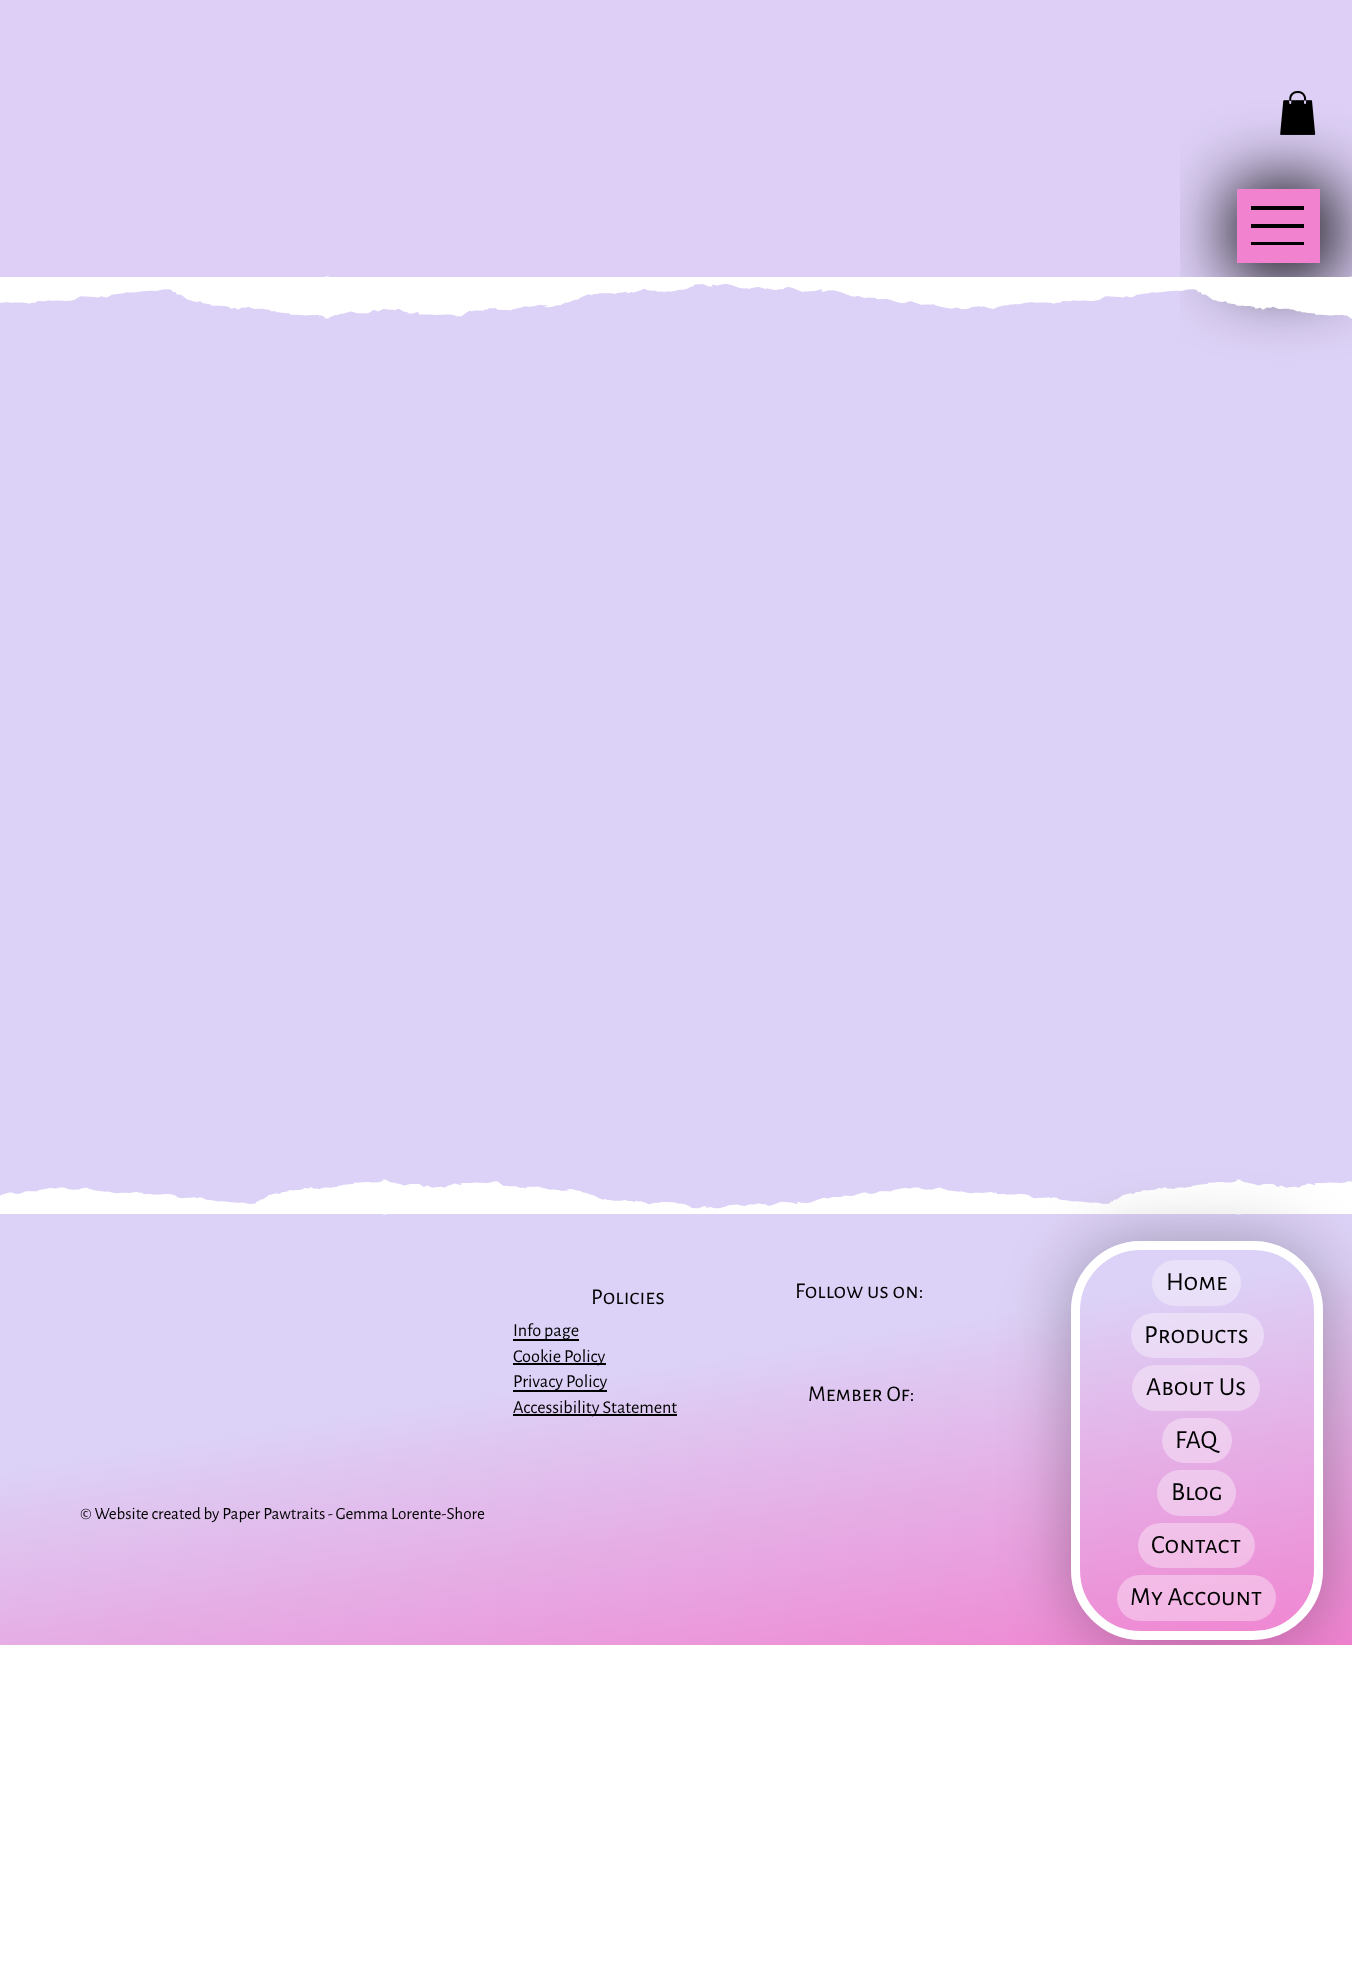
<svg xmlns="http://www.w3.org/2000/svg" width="1352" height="1966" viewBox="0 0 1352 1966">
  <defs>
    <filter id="blur1" x="-50%" y="-200%" width="200%" height="500%"><feGaussianBlur stdDeviation="35"/></filter>
    <linearGradient id="g1" gradientUnits="userSpaceOnUse" x1="627" y1="1115" x2="726" y2="1744"><stop offset="0.4" stop-color="#dcd1f6"/><stop offset="1" stop-color="#f182d0"/></linearGradient>
    <clipPath id="clip1"><rect x="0" y="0" width="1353" height="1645"/></clipPath>
    <clipPath id="clip2"><path d="M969 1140H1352V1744H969ZM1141 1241H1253C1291.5 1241 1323 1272.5 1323 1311V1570C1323 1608.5 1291.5 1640 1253 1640H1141C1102.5 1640 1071 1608.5 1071 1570V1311C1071 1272.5 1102.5 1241 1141 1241Z" clip-rule="evenodd"/></clipPath>
    <filter id="blur2" x="-50%" y="-200%" width="200%" height="500%"><feGaussianBlur stdDeviation="32.5"/></filter>
  </defs>
  <rect width="100%" height="100%" fill="#ffffff"/>
  <rect x="0" y="284" width="1352" height="931" fill="#dcd1f6"/>
  <rect x="0" y="0" width="1352" height="277" fill="#ddcff6"/>
  <rect x="1232" y="184" width="103" height="94" fill="#000000" filter="url(#blur1)"/>
  <rect x="1237" y="189" width="83" height="74" fill="#f182d0"/>
  <path d="M1304 210H1251V206H1304ZM1304 228H1251V224H1304ZM1304 245H1251V242H1304Z" fill="#000000" fill-rule="evenodd"/>
  <image x="1280" y="91" width="36" height="44" href="img1.png"/>
  <image x="0" y="276" width="1352" height="43" href="img2.png"/>
  <image x="0" y="1179" width="1352" height="36" href="img3.png"/>
  <rect x="0" y="1215" width="1352" height="430" fill="url(#g1)"/>
  <text x="591" y="1304" font-family="Alegreya Sans SC" font-size="22.5" fill="#000000">Policies</text>
  <rect x="513" y="1339" width="66" height="2" fill="#000000"/>
  <text x="513" y="1336" font-family="Alegreya Sans" font-size="18.25" fill="#000000">Info page</text>
  <rect x="513" y="1363" width="93" height="2" fill="#000000"/>
  <text x="513" y="1362" font-family="Alegreya Sans" font-size="18.25" fill="#000000">Cookie Policy</text>
  <rect x="513" y="1390" width="94" height="2" fill="#000000"/>
  <text x="513" y="1387" font-family="Alegreya Sans" font-size="18.25" fill="#000000">Privacy Policy</text>
  <rect x="513" y="1414" width="164" height="2" fill="#000000"/>
  <text x="513" y="1413" font-family="Alegreya Sans" font-size="18.25" fill="#000000">Accessibility Statement</text>
  <text x="795" y="1298" font-family="Alegreya Sans SC" font-size="22.5" fill="#000000">Follow us on:</text>
  <text x="808" y="1401" font-family="Alegreya Sans SC" font-size="22.5" fill="#000000">Member Of:</text>
  <g clip-path="url(#clip1)">
    <g clip-path="url(#clip2)">
      <rect x="1068" y="1239" width="259" height="406" rx="74" fill="#000000" fill-opacity="0.27" filter="url(#blur2)"/>
    </g>
  </g>
  <rect x="1075.5" y="1245.5" width="243" height="390" rx="65.5" fill="none" stroke="#ffffff" stroke-width="9"/>
  <rect x="1152" y="1260" width="89" height="46" rx="23" fill="#ffffff" fill-opacity="0.36"/>
  <text x="1166" y="1290" font-family="Alegreya Sans SC" font-size="26.25" fill="#000000">Home</text>
  <rect x="1131" y="1313" width="133" height="45" rx="22.5" fill="#ffffff" fill-opacity="0.36"/>
  <text x="1144" y="1343" font-family="Alegreya Sans SC" font-size="26.25" fill="#000000">Products</text>
  <rect x="1132" y="1365" width="128" height="46" rx="23" fill="#ffffff" fill-opacity="0.36"/>
  <text x="1146" y="1395" font-family="Alegreya Sans SC" font-size="26.25" fill="#000000">About Us</text>
  <rect x="1162" y="1418" width="70" height="45" rx="22.5" fill="#ffffff" fill-opacity="0.36"/>
  <text x="1175" y="1448" font-family="Alegreya Sans SC" font-size="26.25" fill="#000000">FAQ</text>
  <rect x="1157" y="1470" width="79" height="46" rx="23" fill="#ffffff" fill-opacity="0.36"/>
  <text x="1171" y="1500" font-family="Alegreya Sans SC" font-size="26.25" fill="#000000">Blog</text>
  <rect x="1138" y="1523" width="117" height="45" rx="22.5" fill="#ffffff" fill-opacity="0.36"/>
  <text x="1151" y="1553" font-family="Alegreya Sans SC" font-size="26.25" fill="#000000">Contact</text>
  <rect x="1117" y="1575" width="159" height="46" rx="23" fill="#ffffff" fill-opacity="0.36"/>
  <text x="1130" y="1605" font-family="Alegreya Sans SC" font-size="26.25" fill="#000000">My Account</text>
  <text x="80" y="1519" font-family="Alegreya Sans" font-size="17.1" fill="#000000">© Website created by Paper Pawtraits - Gemma Lorente-Shore</text>
</svg>
